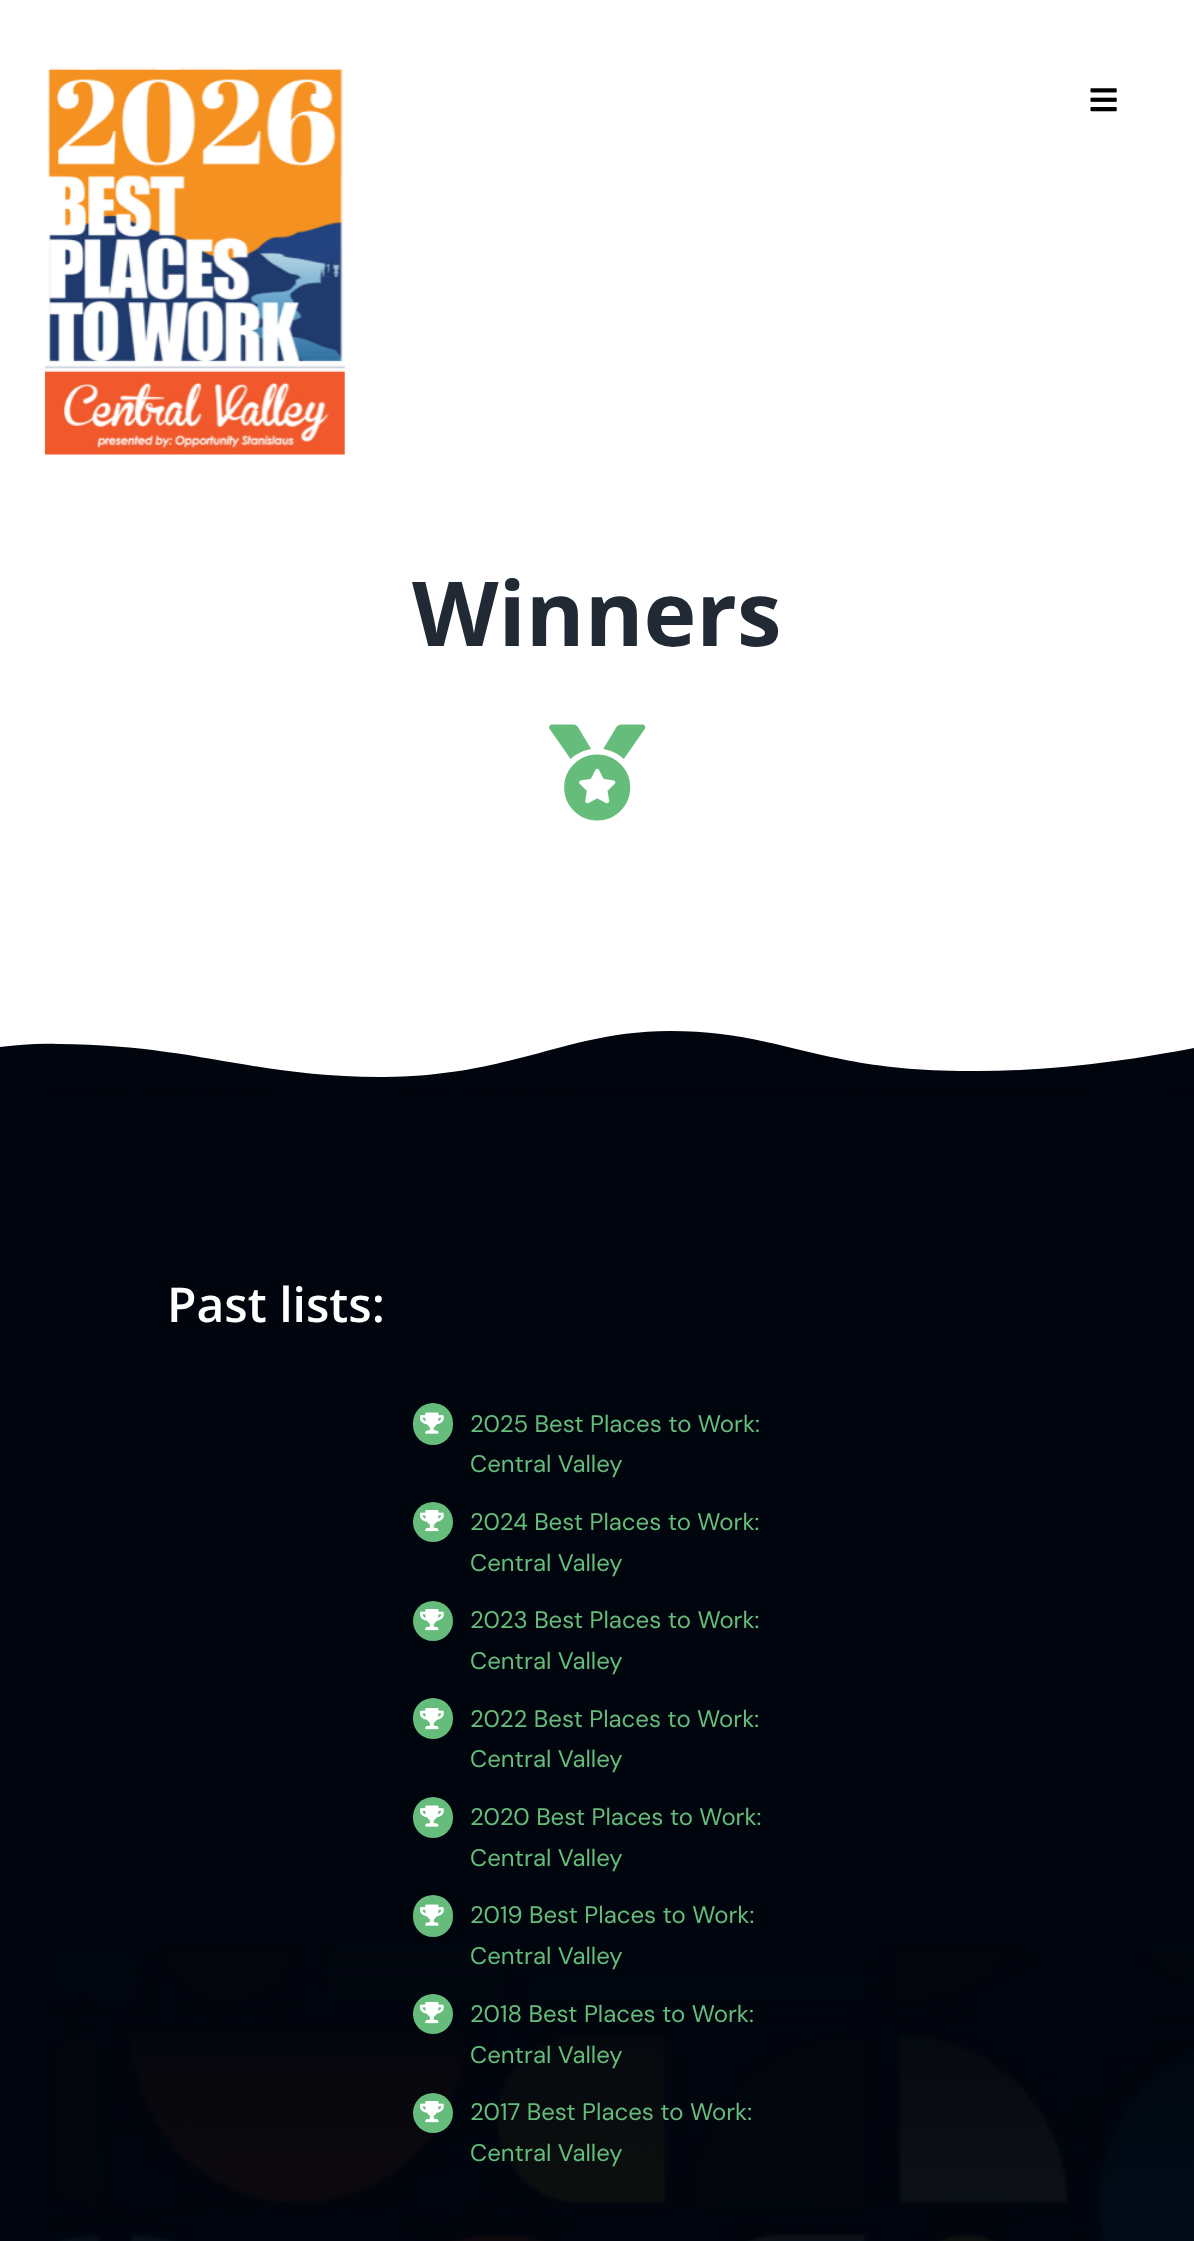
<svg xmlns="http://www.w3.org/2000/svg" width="1194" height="2241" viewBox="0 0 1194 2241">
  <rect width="100%" height="100%" fill="#ffffff"/>
  <image x="45" y="68" width="300" height="387" href="img1.png"/>
  <image x="1090" y="88" width="27" height="24" href="img2.png"/>
  <text x="412" y="646" font-family="Open Sans" font-size="89.5" font-weight="bold" fill="#212934">Winners</text>
  <image x="549" y="724" width="97" height="97" href="img3.png"/>
  <path d="M0 1091H1194V1048C1137 1059 1053 1072 969 1071C818 1071 782 1031 670 1031C567 1031 513 1076 385 1077C256 1078 197 1045 58 1044C38 1043 19 1045 0 1047Z" fill="#01050d"/>
  <rect x="0" y="1091" width="59" height="1150" fill="#01050d"/>
  <image x="59" y="1090" width="1135" height="1151" href="img4.png"/>
  <text x="167" y="1322" font-family="Open Sans" font-size="48" font-weight="600" fill="#ffffff">Past lists:</text>
  <rect x="413" y="1403" width="40" height="42" rx="20" fill="#65bc7b"/>
  <image x="420" y="1412" width="24" height="22" href="img5.png"/>
  <text x="470" y="1432" font-family="DM Sans" font-size="24" fill="#65bc7b">2025 Best Places to Work:</text>
  <text x="470" y="1472" font-family="DM Sans" font-size="24" fill="#65bc7b">Central Valley</text>
  <circle cx="433" cy="1522" r="20" fill="#65bc7b"/>
  <image x="420" y="1510" width="24" height="22" href="img6.png"/>
  <text x="470" y="1530" font-family="DM Sans" font-size="24" fill="#65bc7b">2024 Best Places to Work:</text>
  <text x="470" y="1571" font-family="DM Sans" font-size="24" fill="#65bc7b">Central Valley</text>
  <circle cx="433" cy="1621" r="20" fill="#65bc7b"/>
  <image x="420" y="1609" width="24" height="22" href="img6.png"/>
  <text x="470" y="1628" font-family="DM Sans" font-size="24" fill="#65bc7b">2023 Best Places to Work:</text>
  <text x="470" y="1669" font-family="DM Sans" font-size="24" fill="#65bc7b">Central Valley</text>
  <rect x="413" y="1698" width="40" height="41" rx="20" fill="#65bc7b"/>
  <image x="420" y="1708" width="24" height="22" href="img6.png"/>
  <text x="470" y="1727" font-family="DM Sans" font-size="24" fill="#65bc7b">2022 Best Places to Work:</text>
  <text x="470" y="1767" font-family="DM Sans" font-size="24" fill="#65bc7b">Central Valley</text>
  <rect x="413" y="1797" width="40" height="41" rx="20" fill="#65bc7b"/>
  <image x="420" y="1805" width="24" height="22" href="img5.png"/>
  <text x="470" y="1825" font-family="DM Sans" font-size="24" fill="#65bc7b">2020 Best Places to Work:</text>
  <text x="470" y="1866" font-family="DM Sans" font-size="24" fill="#65bc7b">Central Valley</text>
  <rect x="413" y="1895" width="40" height="42" rx="20" fill="#65bc7b"/>
  <image x="420" y="1904" width="24" height="22" href="img5.png"/>
  <text x="470" y="1923" font-family="DM Sans" font-size="24" fill="#65bc7b">2019 Best Places to Work:</text>
  <text x="470" y="1964" font-family="DM Sans" font-size="24" fill="#65bc7b">Central Valley</text>
  <circle cx="433" cy="2014" r="20" fill="#65bc7b"/>
  <image x="420" y="2002" width="24" height="22" href="img6.png"/>
  <text x="470" y="2022" font-family="DM Sans" font-size="24" fill="#65bc7b">2018 Best Places to Work:</text>
  <text x="470" y="2063" font-family="DM Sans" font-size="24" fill="#65bc7b">Central Valley</text>
  <circle cx="433" cy="2113" r="20" fill="#65bc7b"/>
  <image x="420" y="2101" width="24" height="22" href="img6.png"/>
  <text x="470" y="2120" font-family="DM Sans" font-size="24" fill="#65bc7b">2017 Best Places to Work:</text>
  <text x="470" y="2161" font-family="DM Sans" font-size="24" fill="#65bc7b">Central Valley</text>
</svg>
